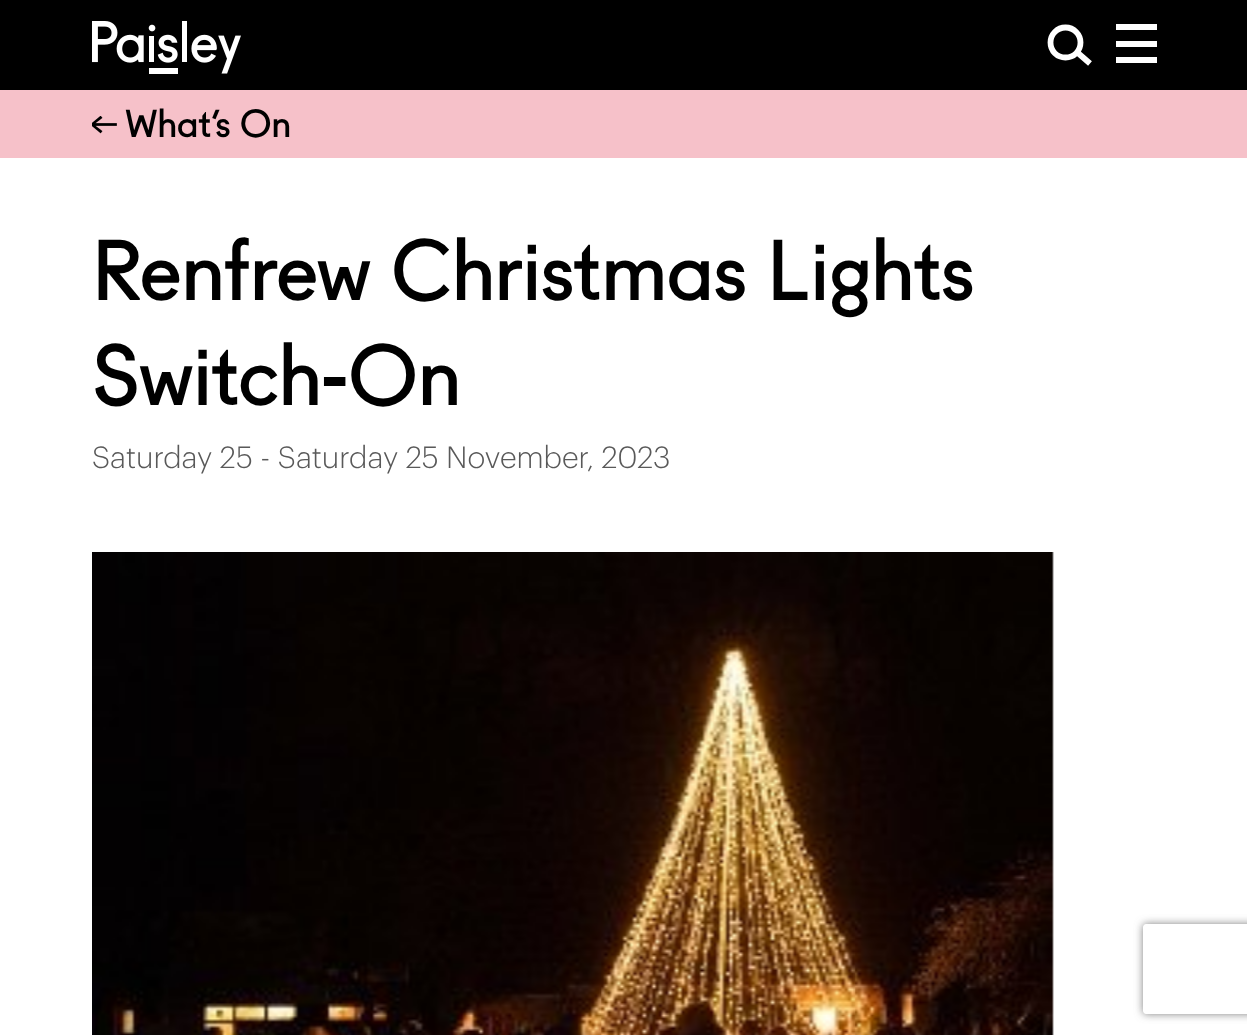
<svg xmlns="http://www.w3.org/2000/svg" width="1247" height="1035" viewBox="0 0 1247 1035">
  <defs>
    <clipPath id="clip1"><path d="M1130 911H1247V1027H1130ZM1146 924H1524C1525.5 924 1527 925.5 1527 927V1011C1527 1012.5 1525.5 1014 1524 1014H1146C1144.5 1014 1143 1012.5 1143 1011V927C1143 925.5 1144.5 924 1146 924Z" clip-rule="evenodd"/></clipPath>
    <filter id="blur1" x="-50%" y="-200%" width="200%" height="500%"><feGaussianBlur stdDeviation="4"/></filter>
  </defs>
  <rect width="100%" height="100%" fill="#ffffff"/>
  <rect x="0" y="0" width="1247" height="90" fill="#000000"/>
  <image x="92" y="21" width="149" height="53" href="img1.png"/>
  <path d="M1090 63.5L1078.5 53.5M1065.5 57.5C1074 57.5 1080.5 51 1080.5 42.5C1080.5 34.5 1074 27.5 1065.5 27.5C1057 27.5 1050.5 34.5 1050.5 42.5C1050.5 51 1057 57.5 1065.5 57.5Z" fill="none" stroke="#ffffff" stroke-width="5.8"/>
  <rect x="1116" y="24" width="41" height="6" fill="#ffffff"/>
  <rect x="1116" y="41" width="41" height="6" fill="#ffffff"/>
  <rect x="1116" y="57" width="41" height="6" fill="#ffffff"/>
  <rect x="0" y="90" width="1247" height="68" fill="#f6c1c9"/>
  <image x="92" y="116" width="25" height="18" href="img2.png"/>
  <text x="125" y="137" font-family="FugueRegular" font-size="37.5" fill="#000000">What’s On</text>
  <text x="92" y="300" font-family="FugueRegular" font-size="82.5" fill="#000000">Renfrew Christmas Lights</text>
  <text x="92" y="405" font-family="FugueRegular" font-size="82.5" fill="#000000">Switch-On</text>
  <text x="92" y="468" font-family="Graphik" font-size="30" font-weight="300" fill="#595959">Saturday 25 - Saturday 25 November, 2023</text>
  <image x="92" y="552" width="962" height="483" href="img3.png"/>
  <g clip-path="url(#clip1)">
    <rect x="1143" y="924" width="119" height="90" rx="3" fill="#808080" filter="url(#blur1)"/>
  </g>
</svg>
